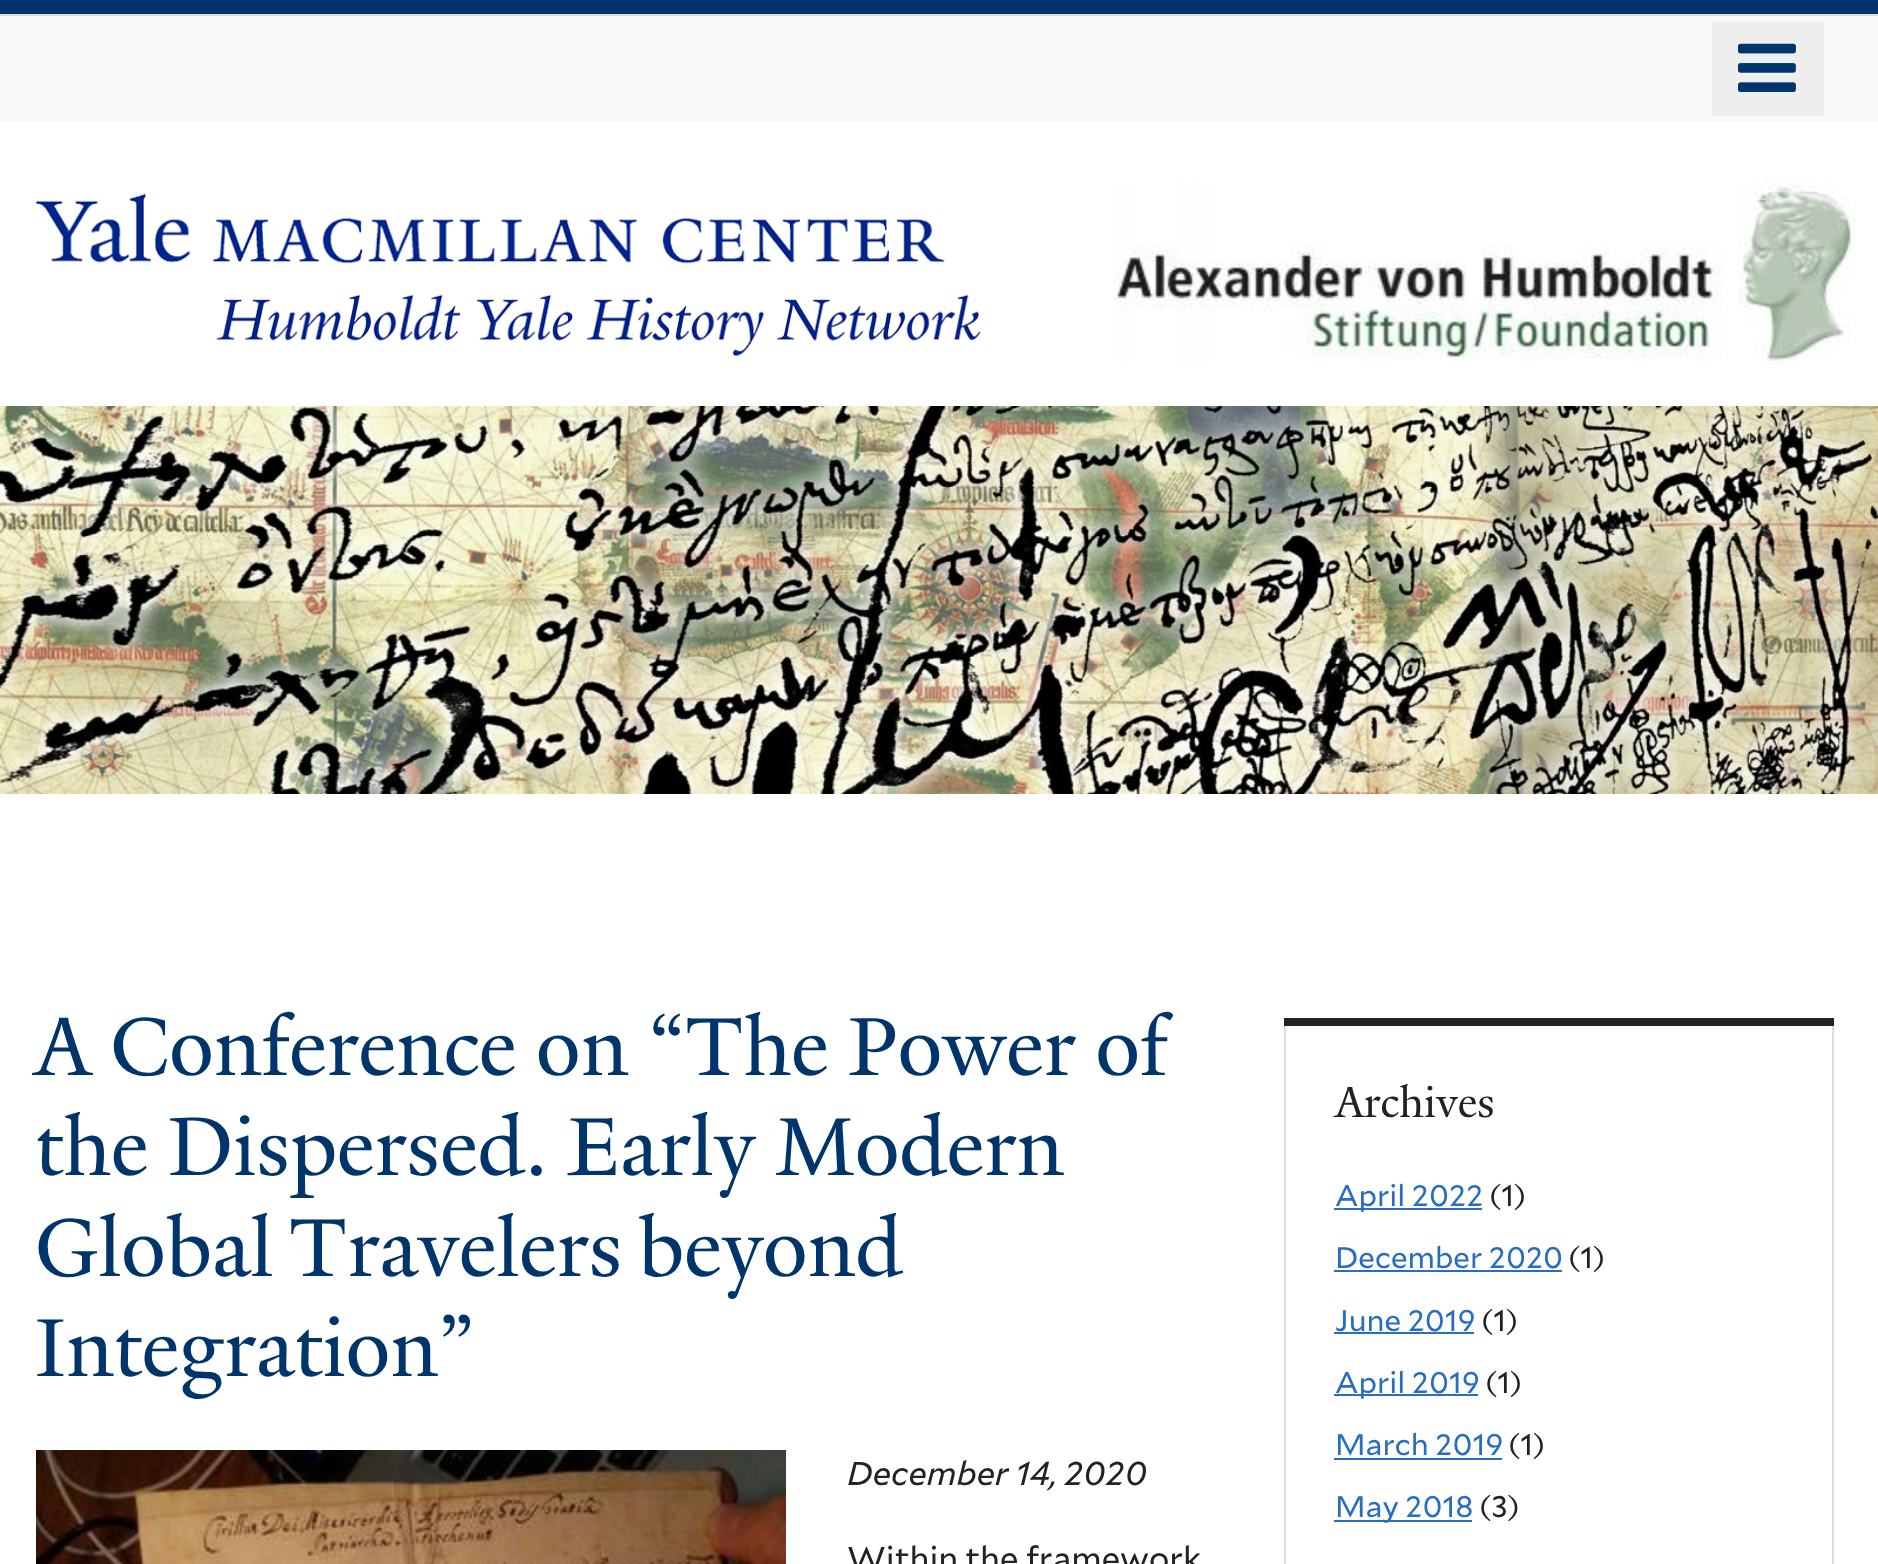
<svg xmlns="http://www.w3.org/2000/svg" width="1878" height="1564" viewBox="0 0 1878 1564">
  <style>*{font-kerning:none!important;font-variant-ligatures:none!important}</style>
  <rect width="100%" height="100%" fill="#ffffff"/>
  <rect x="0" y="0" width="1878" height="14" fill="#00356b"/>
  <rect x="0" y="16" width="1878" height="106" fill="#f9f9f9"/>
  <rect x="0" y="14" width="1878" height="2" fill="#dddddd"/>
  <rect x="1712" y="22" width="112" height="94" fill="#eeeeee"/>
  <image x="1738" y="43" width="58" height="49" href="img1.png"/>
  <image x="1114" y="182" width="742" height="182" href="img2.png"/>
  <image x="36" y="193" width="945" height="164" href="img3.png"/>
  <image x="0" y="406" width="1878" height="388" href="img4.png"/>
  <text x="35" y="1075" word-spacing="-0.5" font-family="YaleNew" font-size="89.1" fill="#00356b">A Conference on “The Power of</text>
  <text x="35" y="1175" word-spacing="-0.5" font-family="YaleNew" font-size="89.1" fill="#00356b">the Dispersed. Early Modern</text>
  <text x="35" y="1276" word-spacing="-5" font-family="YaleNew" font-size="89.1" fill="#00356b">Global Travelers beyond</text>
  <text x="35" y="1376" font-family="YaleNew" font-size="89.1" fill="#00356b">Integration”</text>
  <image x="36" y="1450" width="750" height="114" href="img5.png"/>
  <text x="847" y="1485" font-family="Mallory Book" font-size="33" font-style="italic" fill="#222222">December 14, 2020</text>
  <text x="847" y="1570" font-family="Mallory Book" font-size="33" fill="#222222">Within the framework</text>
  <rect x="1284" y="1018" width="550" height="8" fill="#222222"/>
  <rect x="1832" y="1026" width="2" height="538" fill="#dddddd"/>
  <rect x="1284" y="1026" width="2" height="538" fill="#dddddd"/>
  <text x="1335" y="1117" font-family="YaleNew" font-size="46.5" fill="#222222">Archives</text>
  <rect x="1334" y="1208" width="148" height="2" fill="#286dc0"/>
  <text x="1335" y="1206" font-family="Mallory Book" font-size="29.75" fill="#286dc0">April 2022</text>
  <text x="1489" y="1206" font-family="Mallory Book" font-size="29.75" fill="#222222">(1)</text>
  <text x="1335" y="1268" font-family="Mallory Book" font-size="29.75" fill="#286dc0">December 2020</text>
  <rect x="1334" y="1270" width="228" height="2" fill="#286dc0"/>
  <text x="1568" y="1268" font-family="Mallory Book" font-size="29.75" fill="#222222">(1)</text>
  <text x="1335" y="1331" font-family="Mallory Book" font-size="29.75" fill="#286dc0">June 2019</text>
  <rect x="1334" y="1332" width="140" height="2" fill="#286dc0"/>
  <text x="1481" y="1331" font-family="Mallory Book" font-size="29.75" fill="#222222">(1)</text>
  <rect x="1334" y="1394" width="144" height="2" fill="#286dc0"/>
  <text x="1335" y="1393" font-family="Mallory Book" font-size="29.75" fill="#286dc0">April 2019</text>
  <text x="1485" y="1393" font-family="Mallory Book" font-size="29.75" fill="#222222">(1)</text>
  <text x="1335" y="1455" font-family="Mallory Book" font-size="29.75" fill="#286dc0">March 2019</text>
  <rect x="1334" y="1458" width="168" height="2" fill="#286dc0"/>
  <text x="1508" y="1455" font-family="Mallory Book" font-size="29.75" fill="#222222">(1)</text>
  <rect x="1334" y="1520" width="138" height="2" fill="#286dc0"/>
  <text x="1335" y="1517" font-family="Mallory Book" font-size="29.75" fill="#286dc0">May 2018</text>
  <text x="1479" y="1517" font-family="Mallory Book" font-size="29.75" fill="#222222">(3)</text>
</svg>
